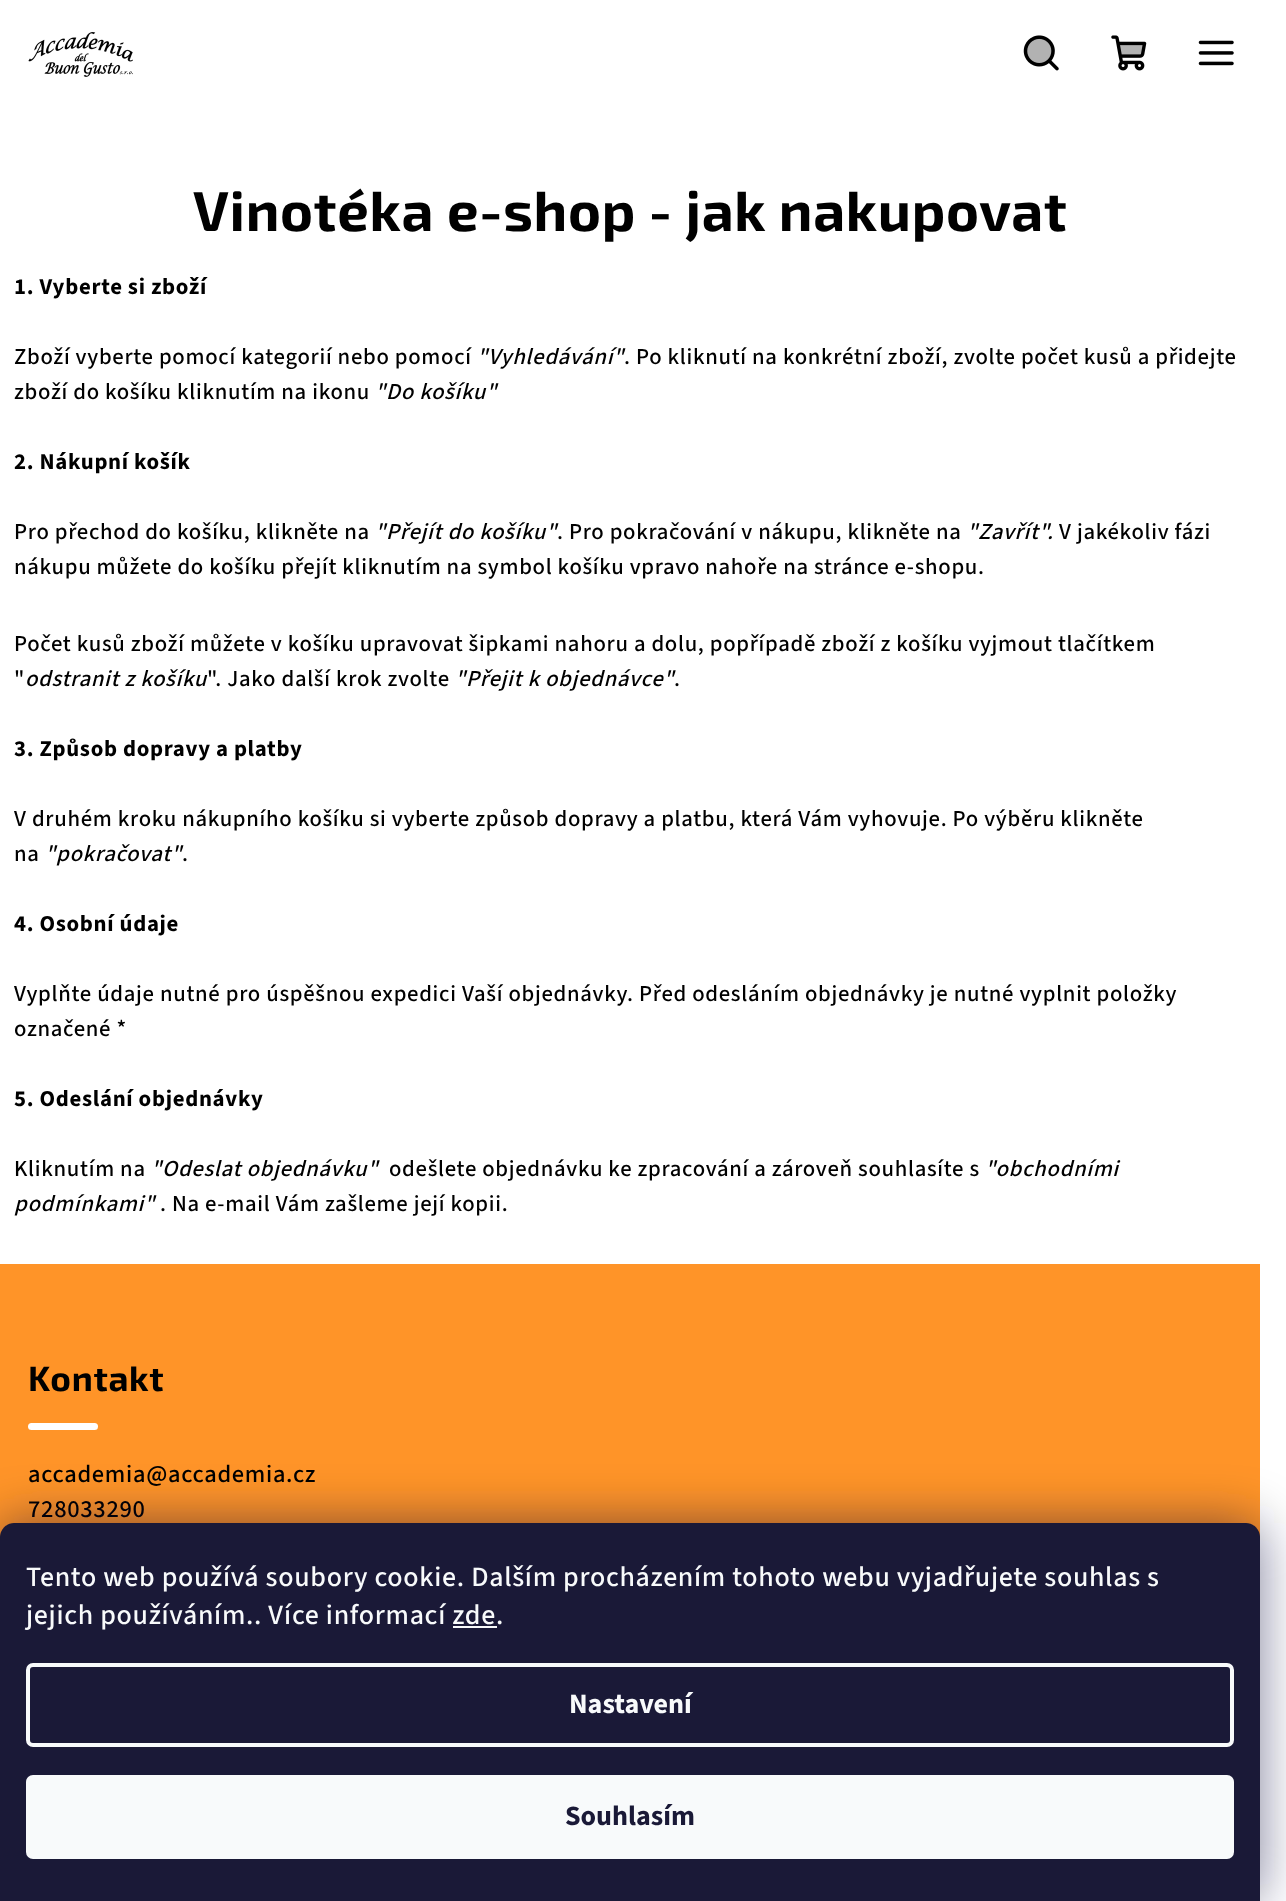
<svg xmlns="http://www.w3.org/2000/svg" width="1286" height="1901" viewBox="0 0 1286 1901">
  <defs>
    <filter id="blur1" x="-50%" y="-200%" width="200%" height="500%"><feGaussianBlur stdDeviation="26"/></filter>
  </defs>
  <rect width="100%" height="100%" fill="#ffffff"/>
  <image x="28" y="32" width="105" height="45" href="img1.png"/>
  <image x="1023" y="35" width="36" height="36" href="img2.png"/>
  <path d="M1039.5 65C1057.5 65 1057.5 37 1039.5 37C1036.5 37 1033.5 38 1031 40C1020.5 48 1026 65 1039.5 65Z" fill="#000000" fill-opacity="0.3"/>
  <image x="1111" y="35" width="36" height="36" href="img3.png"/>
  <path d="M1120.5 56H1137C1141.5 56 1142 56.5 1143 52.5L1144.5 43.5H1118Z" fill="#000000" fill-opacity="0.3"/>
  <image x="1198" y="40" width="36" height="26" href="img4.png"/>
  <text x="193" y="231" font-family="'Exo 2'" font-size="56" font-weight="bold" letter-spacing="0.7" fill="#000000">Vinotéka e-shop - jak nakupovat</text>
  <text x="14" y="294" font-family="'Source Sans 3'" font-size="22.75" font-weight="bold" letter-spacing="0.7" fill="#000000">1. Vyberte si zboží</text>
  <text x="14" y="364" font-family="'Source Sans 3'" font-size="22.75" font-weight="500" letter-spacing="0.7" fill="#000000">Zboží vyberte pomocí kategorií nebo pomocí</text>
  <text x="477" y="364" font-family="'Source Sans 3'" font-size="22.75" font-weight="500" font-style="italic" letter-spacing="0.7" fill="#000000">"Vyhledávání"</text>
  <text x="624" y="364" font-family="'Source Sans 3'" font-size="22.75" font-weight="500" letter-spacing="0.7" fill="#000000">. Po kliknutí na konkrétní zboží, zvolte počet kusů a přidejte</text>
  <text x="14" y="399" font-family="'Source Sans 3'" font-size="22.75" font-weight="500" letter-spacing="0.7" fill="#000000">zboží do košíku kliknutím na ikonu</text>
  <text x="375" y="399" font-family="'Source Sans 3'" font-size="22.75" font-weight="500" font-style="italic" letter-spacing="0.7" fill="#000000">"Do košíku"</text>
  <text x="14" y="469" font-family="'Source Sans 3'" font-size="22.75" font-weight="bold" letter-spacing="0.7" fill="#000000">2. Nákupní košík</text>
  <text x="14" y="539" font-family="'Source Sans 3'" font-size="22.75" font-weight="500" letter-spacing="0.7" fill="#000000">Pro přechod do košíku, klikněte na</text>
  <text x="375" y="539" font-family="'Source Sans 3'" font-size="22.75" font-weight="500" font-style="italic" letter-spacing="0.7" fill="#000000">"Přejít do košíku"</text>
  <text x="557" y="539" font-family="'Source Sans 3'" font-size="22.75" font-weight="500" letter-spacing="0.7" fill="#000000">. Pro pokračování v nákupu, klikněte na</text>
  <text x="967" y="539" font-family="'Source Sans 3'" font-size="22.75" font-weight="500" font-style="italic" letter-spacing="0.7" fill="#000000">"Zavřít".</text>
  <text x="1059" y="539" font-family="'Source Sans 3'" font-size="22.75" font-weight="500" letter-spacing="0.7" fill="#000000">V jakékoliv fázi</text>
  <text x="14" y="574" font-family="'Source Sans 3'" font-size="22.75" font-weight="500" letter-spacing="0.7" fill="#000000">nákupu můžete do košíku přejít kliknutím na symbol košíku vpravo nahoře na stránce e-shopu.</text>
  <text x="14" y="651" font-family="'Source Sans 3'" font-size="22.75" font-weight="500" letter-spacing="0.7" fill="#000000">Počet kusů zboží můžete v košíku upravovat šipkami nahoru a dolu, popřípadě zboží z košíku vyjmout tlačítkem</text>
  <text x="14" y="686" font-family="'Source Sans 3'" font-size="22.75" font-weight="500" letter-spacing="0.7" fill="#000000">"</text>
  <text x="25" y="686" font-family="'Source Sans 3'" font-size="22.75" font-weight="500" font-style="italic" letter-spacing="0.7" fill="#000000">odstranit z košíku</text>
  <text x="207" y="686" font-family="'Source Sans 3'" font-size="22.75" font-weight="500" letter-spacing="0.7" fill="#000000">". Jako další krok zvolte</text>
  <text x="455" y="686" font-family="'Source Sans 3'" font-size="22.75" font-weight="500" font-style="italic" letter-spacing="0.7" fill="#000000">"Přejit k objednávce"</text>
  <text x="674" y="686" font-family="'Source Sans 3'" font-size="22.75" font-weight="500" letter-spacing="0.7" fill="#000000">.</text>
  <text x="14" y="756" font-family="'Source Sans 3'" font-size="22.75" font-weight="bold" letter-spacing="0.7" fill="#000000">3. Způsob dopravy a platby</text>
  <text x="14" y="826" font-family="'Source Sans 3'" font-size="22.75" font-weight="500" letter-spacing="0.7" fill="#000000">V druhém kroku nákupního košíku si vyberte způsob dopravy a platbu, která Vám vyhovuje. Po výběru klikněte</text>
  <text x="14" y="861" font-family="'Source Sans 3'" font-size="22.75" font-weight="500" letter-spacing="0.7" fill="#000000">na</text>
  <text x="45" y="861" font-family="'Source Sans 3'" font-size="22.75" font-weight="500" font-style="italic" letter-spacing="0.7" fill="#000000">"pokračovat"</text>
  <text x="182" y="861" font-family="'Source Sans 3'" font-size="22.75" font-weight="500" letter-spacing="0.7" fill="#000000">.</text>
  <text x="14" y="931" font-family="'Source Sans 3'" font-size="22.75" font-weight="bold" letter-spacing="0.7" fill="#000000">4. Osobní údaje</text>
  <text x="14" y="1001" font-family="'Source Sans 3'" font-size="22.75" font-weight="500" letter-spacing="0.7" fill="#000000">Vyplňte údaje nutné pro úspěšnou expedici Vaší objednávky. Před odesláním objednávky je nutné vyplnit položky</text>
  <text x="14" y="1036" font-family="'Source Sans 3'" font-size="22.75" font-weight="500" letter-spacing="0.7" fill="#000000">označené *</text>
  <text x="14" y="1106" font-family="'Source Sans 3'" font-size="22.75" font-weight="bold" letter-spacing="0.7" fill="#000000">5. Odeslání objednávky</text>
  <text x="14" y="1176" font-family="'Source Sans 3'" font-size="22.75" font-weight="500" letter-spacing="0.7" fill="#000000">Kliknutím na</text>
  <text x="151" y="1176" font-family="'Source Sans 3'" font-size="22.75" font-weight="500" font-style="italic" letter-spacing="0.7" fill="#000000">"Odeslat objednávku"</text>
  <text x="389" y="1176" font-family="'Source Sans 3'" font-size="22.75" font-weight="500" letter-spacing="0.7" fill="#000000">odešlete objednávku ke zpracování a zároveň souhlasíte s</text>
  <text x="985" y="1176" font-family="'Source Sans 3'" font-size="22.75" font-weight="500" font-style="italic" letter-spacing="0.7" fill="#000000">"obchodními</text>
  <text x="14" y="1211" font-family="'Source Sans 3'" font-size="22.75" font-weight="500" font-style="italic" letter-spacing="0.7" fill="#000000">podmínkami"</text>
  <text x="160" y="1211" font-family="'Source Sans 3'" font-size="22.75" font-weight="500" letter-spacing="0.7" fill="#000000">. Na e-mail Vám zašleme její kopii.</text>
  <rect x="0" y="1264" width="1260" height="273" fill="#ff9428"/>
  <text x="28" y="1391" font-family="'Exo 2'" font-size="35" font-weight="bold" letter-spacing="0.7" fill="#000000">Kontakt</text>
  <rect x="28" y="1423" width="70" height="7" rx="3.5" fill="#ffffff"/>
  <text x="28" y="1482" font-family="'Source Sans 3'" font-size="24.5" font-weight="500" letter-spacing="0.7" fill="#000000">accademia@accademia.cz</text>
  <text x="28" y="1517" font-family="'Source Sans 3'" font-size="24.5" font-weight="500" letter-spacing="0.7" fill="#000000">728033290</text>
  <rect x="0" y="1523" width="1260" height="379" rx="14" fill="#1b1939" fill-opacity="0.5" filter="url(#blur1)"/>
  <path d="M14 1523H1246C1253.5 1523 1260 1529.5 1260 1537V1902H0V1537C0 1529.5 6.5 1523 14 1523Z" fill="#1a1937"/>
  <text x="26" y="1586" font-family="'Source Sans 3'" font-size="28" font-weight="500" letter-spacing="0.7" fill="#f8fafb">Tento web používá soubory cookie. Dalším procházením tohoto webu vyjadřujete souhlas s</text>
  <text x="26" y="1624" font-family="'Source Sans 3'" font-size="28" font-weight="500" letter-spacing="0.7" fill="#f8fafb">jejich používáním.. Více informací zde.</text>
  <rect x="453" y="1626" width="44" height="2" fill="#f8fafb"/>
  <rect x="28" y="1665" width="1204" height="80" rx="5" fill="none" stroke="#f8fafb" stroke-width="4"/>
  <text x="569" y="1713" font-family="'Source Sans 3'" font-size="28" font-weight="bold" fill="#f8fafb">Nastavení</text>
  <rect x="26" y="1775" width="1208" height="84" rx="7" fill="#f8fafb"/>
  <text x="565" y="1825" font-family="'Source Sans 3'" font-size="28" font-weight="bold" fill="#1a1937">Souhlasím</text>
</svg>
